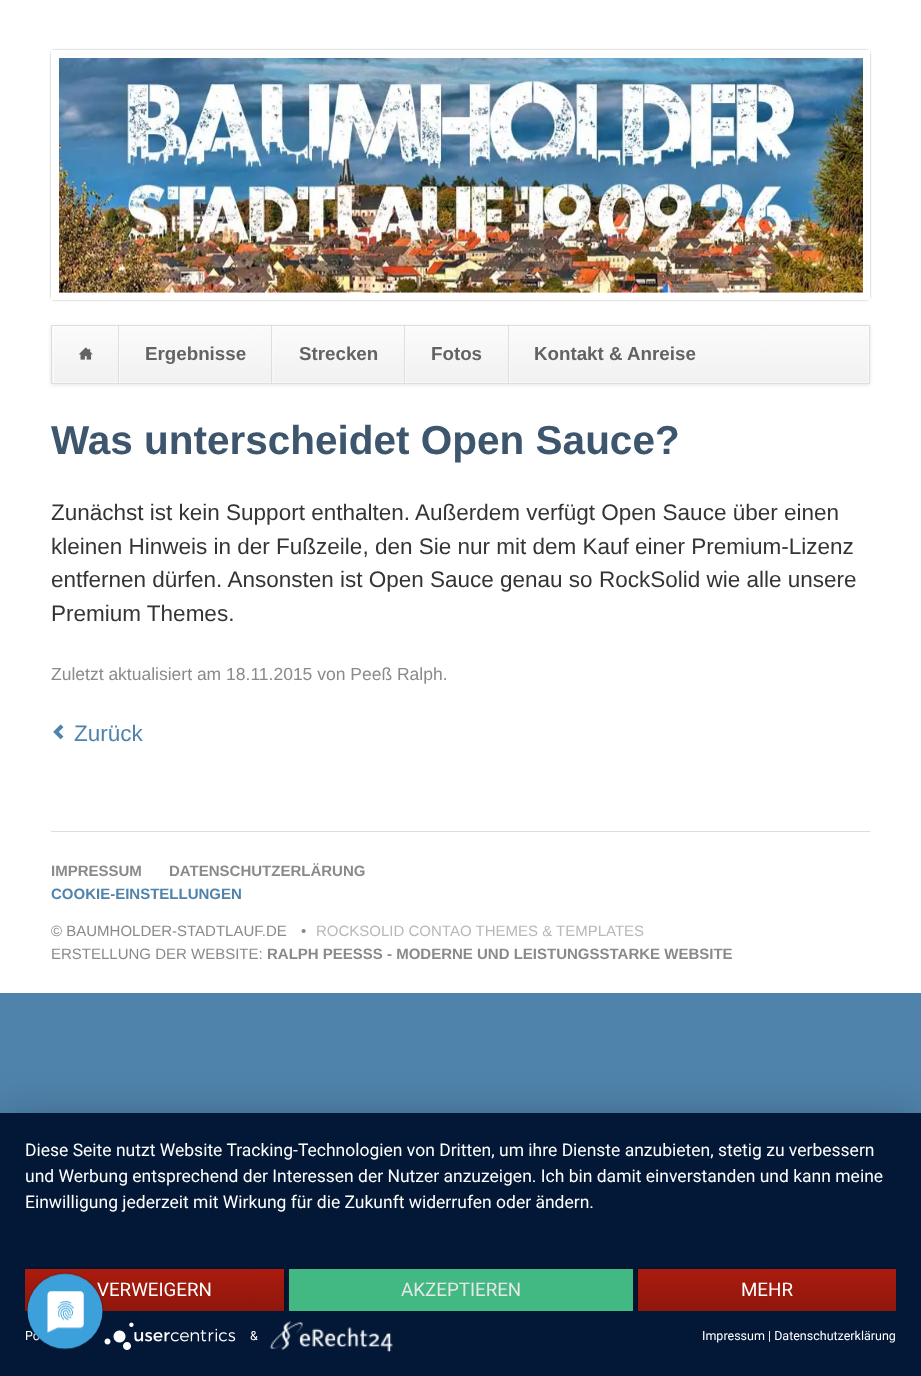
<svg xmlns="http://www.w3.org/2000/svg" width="921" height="1376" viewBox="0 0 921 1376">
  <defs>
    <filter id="blur1" x="-50%" y="-200%" width="200%" height="500%"><feGaussianBlur stdDeviation="1"/></filter>
    <filter id="blur2" x="-50%" y="-200%" width="200%" height="500%"><feGaussianBlur stdDeviation="2"/></filter>
    <linearGradient id="g1" gradientUnits="userSpaceOnUse" x1="461" y1="326" x2="461" y2="383"><stop offset="0" stop-color="#fbfbfb"/><stop offset="1" stop-color="#f1f1f1"/></linearGradient>
    <filter id="blur3" x="-50%" y="-200%" width="200%" height="500%"><feGaussianBlur stdDeviation="22.5"/></filter>
    <clipPath id="clip1"><rect x="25" y="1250" width="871" height="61"/></clipPath>
    <filter id="blur4" x="-50%" y="-200%" width="200%" height="500%"><feGaussianBlur stdDeviation="2.5"/></filter>
    <linearGradient id="g2" gradientUnits="userSpaceOnUse" x1="154" y1="1269" x2="154" y2="1311"><stop offset="0" stop-color="#ab1b0e"/><stop offset="1" stop-color="#8f170c"/></linearGradient>
    <linearGradient id="g3" gradientUnits="userSpaceOnUse" x1="767" y1="1269" x2="767" y2="1311"><stop offset="0" stop-color="#ab1b0e"/><stop offset="1" stop-color="#8f170c"/></linearGradient>
  </defs>
  <rect width="100%" height="100%" fill="#4f83ab"/>
  <rect x="0" y="0" width="921" height="993" fill="#ffffff"/>
  <rect x="51" y="50" width="819" height="250" rx="4" fill="#000000" fill-opacity="0.3" filter="url(#blur1)"/>
  <rect x="55" y="54" width="811" height="242" fill="none" stroke="#ffffff" stroke-width="8"/>
  <image x="59" y="58" width="804" height="235" href="img1.png"/>
  <rect x="51" y="326" width="819" height="59" fill="#000000" fill-opacity="0.1" filter="url(#blur2)"/>
  <rect x="52" y="326" width="817" height="57" fill="url(#g1)"/>
  <rect x="53.5" y="326.5" width="815" height="56" fill="none" stroke="#ffffff" stroke-opacity="0.5"/>
  <rect x="51.5" y="325.5" width="818" height="58" fill="none" stroke="#dedede"/>
  <rect x="53" y="363" width="1" height="20" fill="#ffffff" fill-opacity="0.5"/>
  <image x="78" y="347" width="15" height="13" href="img2.png"/>
  <rect x="119" y="335" width="1" height="48" fill="#ffffff" fill-opacity="0.5"/>
  <rect x="118" y="326" width="1" height="57" fill="#dedede"/>
  <text x="145" y="360" font-family="Liberation Sans" font-size="18.75" font-weight="bold" fill="#636363">Ergebnisse</text>
  <rect x="273" y="335" width="1" height="48" fill="#ffffff" fill-opacity="0.5"/>
  <rect x="271" y="326" width="1" height="57" fill="#dedede"/>
  <text x="299" y="360" font-family="Liberation Sans" font-size="18.75" font-weight="bold" fill="#636363">Strecken</text>
  <rect x="405" y="335" width="1" height="48" fill="#ffffff" fill-opacity="0.5"/>
  <rect x="404" y="326" width="1" height="57" fill="#dedede"/>
  <text x="431" y="360" font-family="Liberation Sans" font-size="18.75" font-weight="bold" fill="#636363">Fotos</text>
  <rect x="509" y="335" width="1" height="48" fill="#ffffff" fill-opacity="0.5"/>
  <rect x="508" y="326" width="1" height="57" fill="#dedede"/>
  <text x="534" y="360" font-family="Liberation Sans" font-size="18.75" font-weight="bold" fill="#636363">Kontakt &amp; Anreise</text>
  <text x="51" y="454" font-family="Liberation Sans" font-size="40.5" font-weight="bold" fill="#3d566e">Was unterscheidet Open Sauce?</text>
  <text x="51" y="520" font-family="Liberation Sans" font-size="22.5" fill="#343434">Zunächst ist kein Support enthalten. Außerdem verfügt Open Sauce über einen</text>
  <text x="51" y="554" font-family="Liberation Sans" font-size="22.5" fill="#343434">kleinen Hinweis in der Fußzeile, den Sie nur mit dem Kauf einer Premium-Lizenz</text>
  <text x="51" y="587" font-family="Liberation Sans" font-size="22.5" fill="#343434">entfernen dürfen. Ansonsten ist Open Sauce genau so RockSolid wie alle unsere</text>
  <text x="51" y="621" font-family="Liberation Sans" font-size="22.5" fill="#343434">Premium Themes.</text>
  <text x="51" y="680" font-family="Liberation Sans" font-size="17.5" fill="#8a8a8a">Zuletzt aktualisiert am 18.11.2015 von Peeß Ralph.</text>
  <image x="53" y="724" width="11" height="16" href="img3.png"/>
  <text x="74" y="741" font-family="Liberation Sans" font-size="22.5" fill="#4f83ab">Zurück</text>
  <rect x="51" y="831" width="819" height="1" fill="#dedede"/>
  <text x="51" y="876" font-family="Liberation Sans" font-size="15" font-weight="bold" fill="#8a8a8a">IMPRESSUM</text>
  <text x="169" y="876" font-family="Liberation Sans" font-size="15" font-weight="bold" fill="#8a8a8a">DATENSCHUTZERLÄRUNG</text>
  <text x="51" y="899" font-family="Liberation Sans" font-size="15" font-weight="bold" fill="#4f83ab">COOKIE-EINSTELLUNGEN</text>
  <text x="51" y="936" font-family="Liberation Sans" font-size="15" fill="#8a8a8a">© BAUMHOLDER-STADTLAUF.DE</text>
  <text x="301" y="936" font-family="Liberation Sans" font-size="15" fill="#8a8a8a">•</text>
  <text x="316" y="936" font-family="Liberation Sans" font-size="15" fill="#b8b8b8">ROCKSOLID CONTAO THEMES &amp; TEMPLATES</text>
  <text x="51" y="959" font-family="Liberation Sans" font-size="15" fill="#8a8a8a">ERSTELLUNG DER WEBSITE:</text>
  <text x="267" y="959" font-family="Liberation Sans" font-size="15" font-weight="bold" fill="#8a8a8a">RALPH PEESSS - MODERNE UND LEISTUNGSSTARKE WEBSITE</text>
  <rect x="0" y="1120" width="921" height="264" fill="#000000" fill-opacity="0.3" filter="url(#blur3)"/>
  <rect x="0" y="1113" width="921" height="263" fill="#021836"/>
  <text x="25" y="1156" font-family="Roboto" font-size="17.5" fill="#ffffff">Diese Seite nutzt Website Tracking-Technologien von Dritten, um ihre Dienste anzubieten, stetig zu verbessern</text>
  <text x="25" y="1182" font-family="Roboto" font-size="17.5" fill="#ffffff">und Werbung entsprechend der Interessen der Nutzer anzuzeigen. Ich bin damit einverstanden und kann meine</text>
  <text x="25" y="1208" font-family="Roboto" font-size="17.5" fill="#ffffff">Einwilligung jederzeit mit Wirkung für die Zukunft widerrufen oder ändern.</text>
  <image x="270" y="1321" width="123" height="31" href="img5.png"/>
  <g clip-path="url(#clip1)">
    <rect x="25" y="1270" width="259" height="43" fill="#000000" fill-opacity="0.4" filter="url(#blur4)"/>
  </g>
  <rect x="25" y="1269" width="259" height="42" fill="url(#g2)"/>
  <text x="97" y="1296" font-family="Roboto" font-size="18.75" fill="#ffffff">VERWEIGERN</text>
  <g clip-path="url(#clip1)">
    <rect x="289" y="1270" width="344" height="43" fill="#000000" fill-opacity="0.4" filter="url(#blur4)"/>
  </g>
  <rect x="289" y="1269" width="344" height="42" fill="#42b983"/>
  <text x="401" y="1296" font-family="Roboto" font-size="18.75" fill="#e6e6e6">AKZEPTIEREN</text>
  <g clip-path="url(#clip1)">
    <rect x="638" y="1270" width="258" height="43" fill="#000000" fill-opacity="0.4" filter="url(#blur4)"/>
  </g>
  <rect x="638" y="1269" width="258" height="42" fill="url(#g3)"/>
  <text x="741" y="1296" font-family="Roboto" font-size="18.75" fill="#ffffff">MEHR</text>
  <text x="25" y="1340" font-family="Roboto" font-size="12.5" fill="#ffffff">Po</text>
  <image x="104" y="1322" width="132" height="28" href="img4.png"/>
  <text x="250" y="1340" font-family="Roboto" font-size="12.5" fill="#ffffff">&amp;</text>
  <text x="702" y="1340" font-family="Roboto" font-size="12.5" fill="#ffffff">Impressum | Datenschutzerklärung</text>
  <image x="26" y="1272" width="78" height="78" href="img6.png"/>
</svg>
